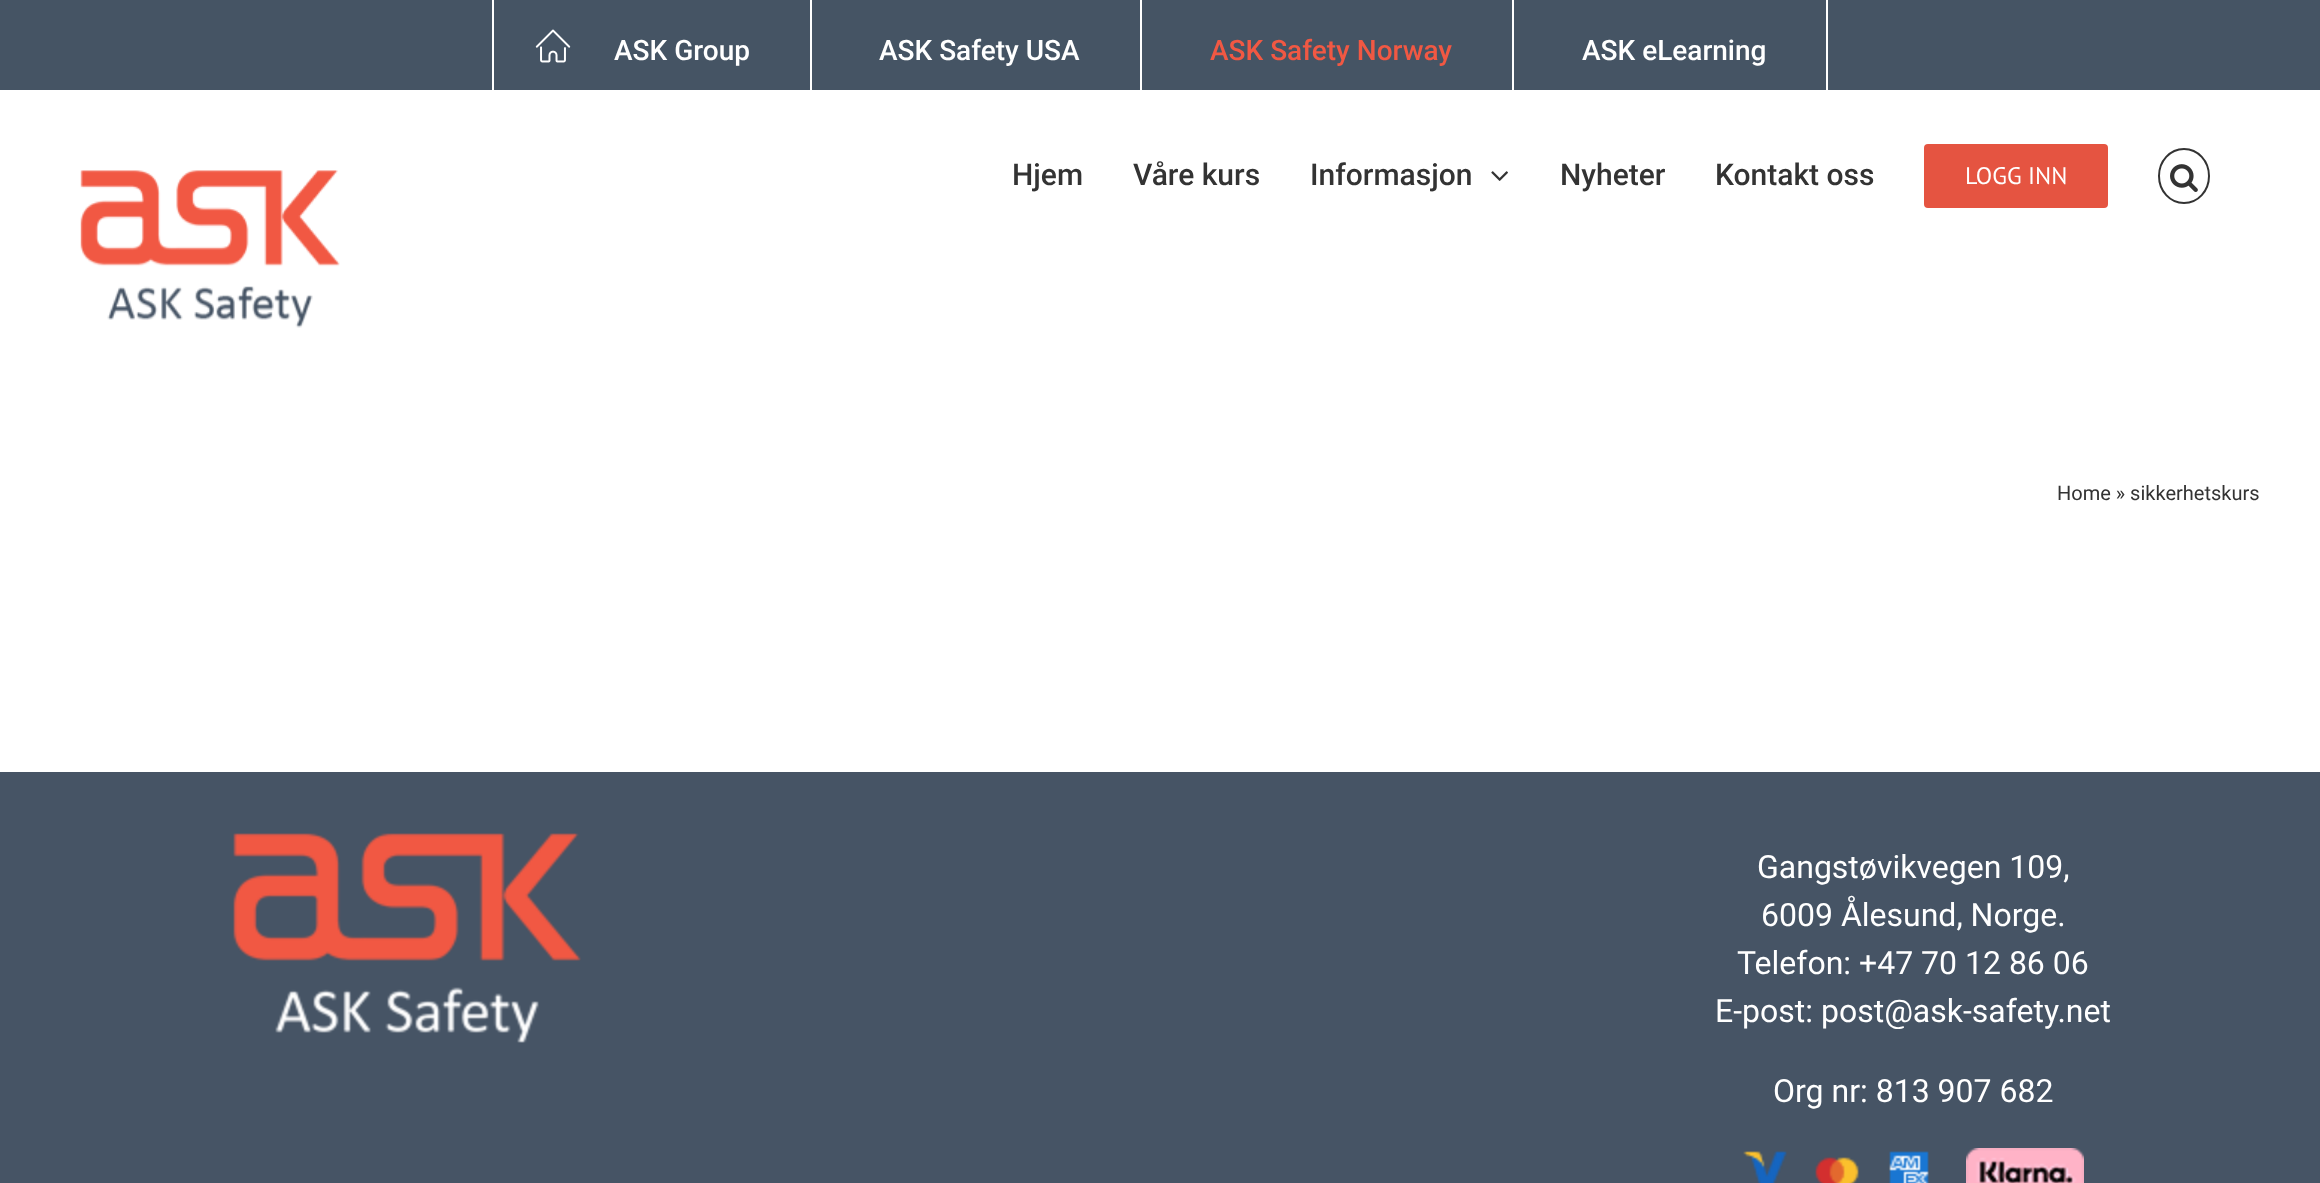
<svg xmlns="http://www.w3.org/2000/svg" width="2320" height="1183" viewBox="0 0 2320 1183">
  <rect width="100%" height="100%" fill="#ffffff"/>
  <rect x="0" y="0" width="2320" height="90" fill="#455464"/>
  <image x="535" y="29" width="36" height="34" href="img1.png"/>
  <rect x="810" y="0" width="2" height="90" fill="#ffffff"/>
  <rect x="492" y="0" width="2" height="90" fill="#ffffff"/>
  <text x="614" y="60" font-family="Roboto" font-size="28" font-weight="500" fill="#ffffff">ASK Group</text>
  <rect x="1140" y="0" width="2" height="90" fill="#ffffff"/>
  <text x="879" y="60" font-family="Roboto" font-size="28" font-weight="500" fill="#ffffff">ASK Safety USA</text>
  <rect x="1512" y="0" width="2" height="90" fill="#ffffff"/>
  <text x="1210" y="60" font-family="Roboto" font-size="28" font-weight="500" fill="#f15843">ASK Safety Norway</text>
  <rect x="1826" y="0" width="2" height="90" fill="#ffffff"/>
  <text x="1582" y="60" font-family="Roboto" font-size="28" font-weight="500" fill="#ffffff">ASK eLearning</text>
  <image x="80" y="170" width="260" height="158" href="img2.png"/>
  <text x="1012" y="185" font-family="Roboto" font-size="30" font-weight="500" fill="#333333">Hjem</text>
  <text x="1133" y="185" font-family="Roboto" font-size="30" font-weight="500" fill="#333333">Våre kurs</text>
  <text x="1310" y="185" font-family="Roboto" font-size="30" font-weight="500" fill="#333333">Informasjon</text>
  <image x="1491" y="171" width="17" height="10" href="img3.png"/>
  <text x="1560" y="185" font-family="Roboto" font-size="30" font-weight="500" fill="#333333">Nyheter</text>
  <text x="1715" y="185" font-family="Roboto" font-size="30" font-weight="500" fill="#333333">Kontakt oss</text>
  <rect x="1924" y="144" width="184" height="64" rx="4" fill="#e55441"/>
  <text x="1965" y="184" font-family="PT Sans" font-size="24" fill="#ffffff">LOGG INN</text>
  <path d="M2184 149C2198 149 2209 161 2209 176C2209 191 2198 203 2184 203C2170 203 2159 191 2159 176C2159 161 2170 149 2184 149Z" fill="none" stroke="#333333" stroke-width="2"/>
  <image x="2170" y="164" width="28" height="28" href="img4.png"/>
  <text x="2057" y="500" font-family="Roboto" font-size="20" fill="#333333">Home » sikkerhetskurs</text>
  <rect x="0" y="772" width="2320" height="411" fill="#465465"/>
  <image x="233" y="833" width="348" height="210" href="img5.png"/>
  <text x="1757" y="878" font-family="Roboto" font-size="32" fill="#ffffff">Gangstøvikvegen 109,</text>
  <text x="1761" y="926" font-family="Roboto" font-size="32" fill="#ffffff">6009 Ålesund, Norge.</text>
  <text x="1737" y="974" font-family="Roboto" font-size="32" fill="#ffffff">Telefon: +47 70 12 86 06</text>
  <text x="1715" y="1022" font-family="Roboto" font-size="32" fill="#ffffff">E-post: post@ask-safety.net</text>
  <text x="1773" y="1102" font-family="Roboto" font-size="32" fill="#ffffff">Org nr: 813 907 682</text>
  <image x="1743" y="1151" width="44" height="32" href="img6.png"/>
  <image x="1815" y="1157" width="44" height="26" href="img7.png"/>
  <image x="1889" y="1151" width="40" height="32" href="img8.png"/>
  <image x="1966" y="1148" width="118" height="35" href="img9.png"/>
</svg>
